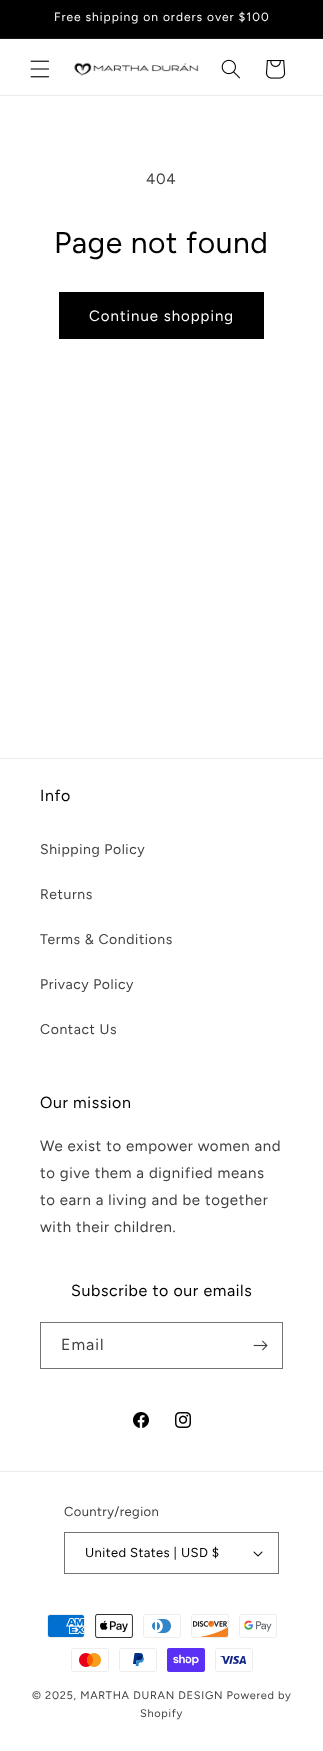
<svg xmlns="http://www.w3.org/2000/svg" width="323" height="1751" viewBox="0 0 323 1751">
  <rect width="100%" height="100%" fill="#ffffff"/>
  <rect x="0" y="0" width="323" height="38" fill="#000000"/>
  <rect x="0" y="38" width="323" height="1" fill="#141414"/>
  <text x="54" y="21" font-family="Figtree" font-size="12" letter-spacing="1" fill="#ffffff">Free shipping on orders over $100</text>
  <rect x="0" y="95" width="323" height="1" fill="#ebebeb"/>
  <image x="30" y="60" width="20" height="18" href="img1.png"/>
  <image x="74" y="62" width="125" height="14" href="img2.png"/>
  <image x="221" y="59" width="19" height="20" href="img3.png"/>
  <image x="266" y="60" width="20" height="19" href="img4.png"/>
  <text x="146" y="184" font-family="Figtree" font-size="15" letter-spacing="0.6" fill="#404040">404</text>
  <text x="54" y="253" font-family="Figtree" font-size="30" letter-spacing="0.6" fill="#000000">Page not found</text>
  <rect x="59" y="292" width="205" height="47" fill="#000000"/>
  <text x="89" y="321" font-family="Figtree" font-size="15" letter-spacing="1" fill="#ffffff">Continue shopping</text>
  <rect x="0" y="758" width="323" height="1" fill="#ebebeb"/>
  <text x="40" y="801" font-family="Figtree" font-size="16" letter-spacing="0.6" fill="#000000">Info</text>
  <text x="40" y="854" font-family="Figtree" font-size="14" letter-spacing="0.6" fill="#404040">Shipping Policy</text>
  <text x="40" y="899" font-family="Figtree" font-size="14" letter-spacing="0.6" fill="#404040">Returns</text>
  <text x="40" y="944" font-family="Figtree" font-size="14" letter-spacing="0.6" fill="#404040">Terms &amp; Conditions</text>
  <text x="40" y="989" font-family="Figtree" font-size="14" letter-spacing="0.6" fill="#404040">Privacy Policy</text>
  <text x="40" y="1034" font-family="Figtree" font-size="14" letter-spacing="0.6" fill="#404040">Contact Us</text>
  <text x="40" y="1108" font-family="Figtree" font-size="16" letter-spacing="0.6" fill="#000000">Our mission</text>
  <text x="40" y="1151" font-family="Figtree" font-size="15" letter-spacing="0.6" fill="#404040">We exist to empower women and</text>
  <text x="40" y="1178" font-family="Figtree" font-size="15" letter-spacing="0.6" fill="#404040">to give them a dignified means</text>
  <text x="40" y="1205" font-family="Figtree" font-size="15" letter-spacing="0.6" fill="#404040">to earn a living and be together</text>
  <text x="40" y="1232" font-family="Figtree" font-size="15" letter-spacing="0.6" fill="#404040">with their children.</text>
  <text x="71" y="1296" font-family="Figtree" font-size="16" letter-spacing="0.6" fill="#000000">Subscribe to our emails</text>
  <rect x="40.5" y="1322.5" width="242" height="46" fill="none" stroke="#737373"/>
  <text x="61" y="1350" font-family="Figtree" font-size="16" letter-spacing="1" fill="#404040">Email</text>
  <image x="253" y="1340" width="15" height="11" href="img5.png"/>
  <image x="133" y="1412" width="16" height="16" href="img6.png"/>
  <image x="175" y="1412" width="16" height="16" href="img7.png"/>
  <rect x="0" y="1471" width="323" height="1" fill="#ebebeb"/>
  <text x="64" y="1516" font-family="Figtree" font-size="13" letter-spacing="0.4" fill="#404040">Country/region</text>
  <image x="253" y="1551" width="10" height="6" href="img8.png"/>
  <rect x="64.5" y="1532.5" width="214" height="41" fill="none" stroke="#737373"/>
  <text x="85" y="1557" font-family="Figtree" font-size="13" letter-spacing="0.4" fill="#000000">United States | USD $</text>
  <image x="47" y="1614" width="38" height="24" href="img9.png"/>
  <image x="95" y="1614" width="38" height="24" href="img10.png"/>
  <image x="143" y="1614" width="38" height="24" href="img11.png"/>
  <image x="191" y="1614" width="38" height="24" href="img12.png"/>
  <image x="239" y="1614" width="38" height="24" href="img13.png"/>
  <image x="71" y="1648" width="38" height="24" href="img14.png"/>
  <image x="119" y="1648" width="38" height="24" href="img15.png"/>
  <image x="167" y="1648" width="38" height="24" href="img16.png"/>
  <image x="215" y="1648" width="38" height="24" href="img17.png"/>
  <text x="32" y="1699" font-family="Figtree" font-size="11" letter-spacing="0.7" fill="#404040">© 2025, MARTHA DURAN DESIGN Powered by</text>
  <text x="140" y="1717" font-family="Figtree" font-size="11" letter-spacing="0.7" fill="#404040">Shopify</text>
</svg>
